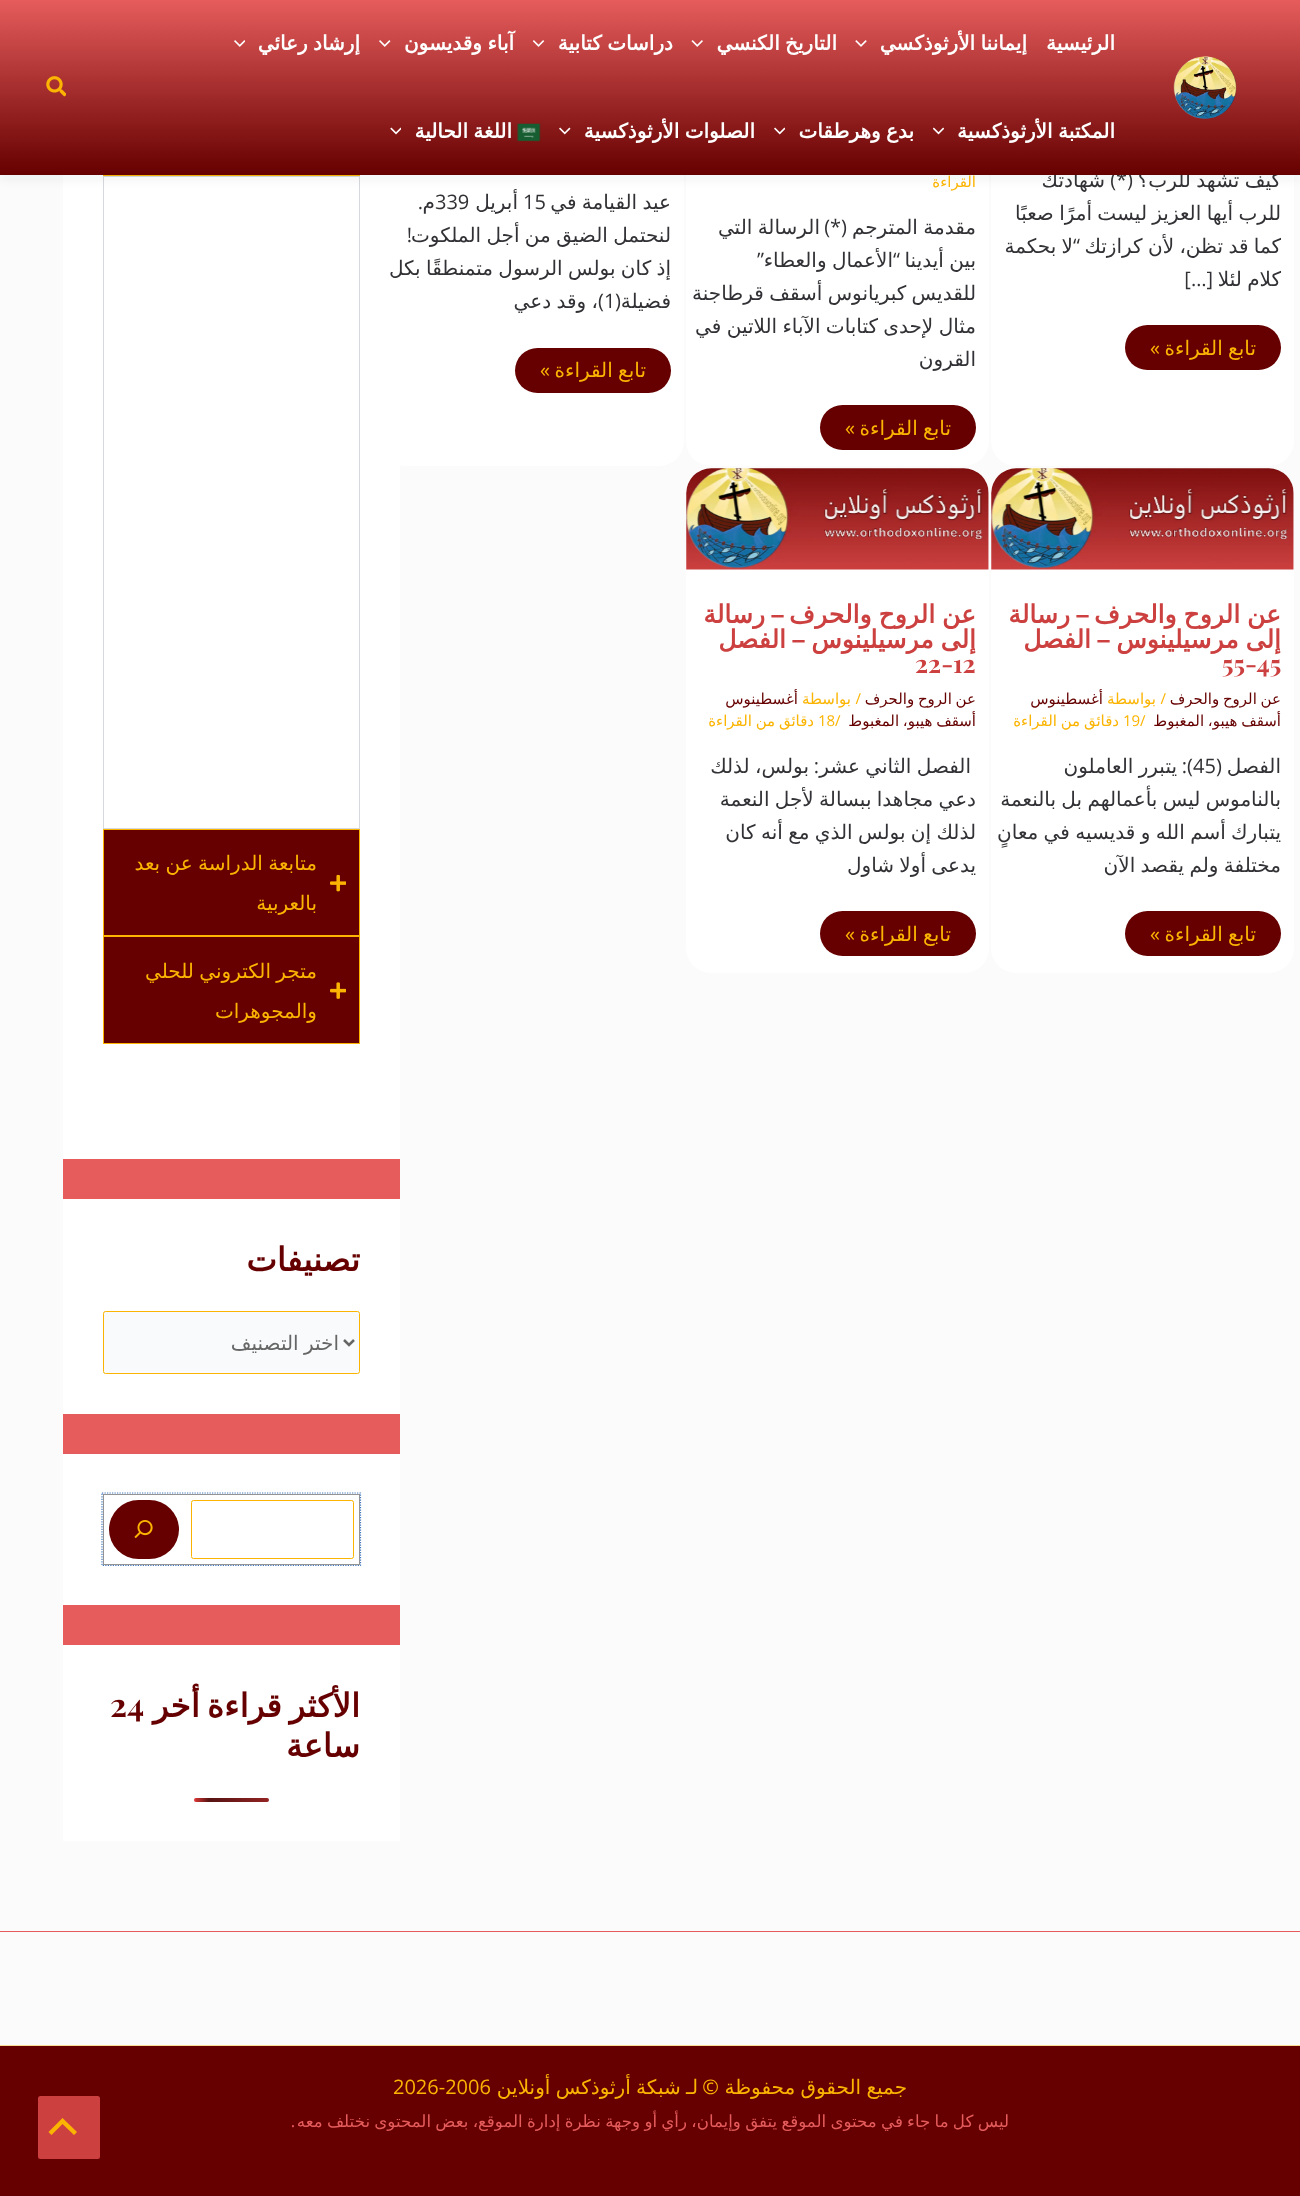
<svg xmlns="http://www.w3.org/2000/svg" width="1300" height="2196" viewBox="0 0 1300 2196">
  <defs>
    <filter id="blur1" x="-50%" y="-200%" width="200%" height="500%"><feGaussianBlur stdDeviation="6"/></filter>
    <linearGradient id="g1" gradientUnits="userSpaceOnUse" x1="650" y1="0" x2="650" y2="175"><stop offset="0" stop-color="#e65c5c"/><stop offset="1" stop-color="#660000"/></linearGradient>
    <linearGradient id="g2" gradientUnits="userSpaceOnUse" x1="194" y1="1799" x2="344" y2="1799"><stop offset="0" stop-color="#dd3737"/><stop offset="0.1" stop-color="#571313"/><stop offset="1" stop-color="#dd3737"/></linearGradient>
  </defs>
  <rect width="100%" height="100%" fill="#fbfbfb"/>
  <rect x="991" y="-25" width="303" height="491" rx="25" fill="#ffffff"/>
  <rect x="686" y="-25" width="303" height="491" rx="25" fill="#ffffff"/>
  <rect x="63" y="175" width="337" height="984" fill="#ffffff"/>
  <rect x="381" y="-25" width="303" height="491" rx="25" fill="#ffffff"/>
  <rect x="103.5" y="69.5" width="256" height="106" fill="none" stroke="#fbb401"/>
  <rect x="103.5" y="176.5" width="256" height="652" fill="none" stroke="#d5d8dc"/>
  <rect x="0" y="3" width="1300" height="175" fill="#243242" fill-opacity="0.07" filter="url(#blur1)"/>
  <text x="1281" y="187" word-spacing="-1" font-family="DejaVu Sans" font-size="20" direction="rtl" fill="#323236">كيف تشهد للرب؟</text>
  <text x="1133" y="187" font-family="Open Sans" font-size="20" direction="rtl" fill="#323236">(*)</text>
  <text x="1105" y="187" font-family="DejaVu Sans" font-size="20" direction="rtl" fill="#323236">شهادتك</text>
  <rect x="0" y="0" width="1300" height="175" fill="url(#g1)"/>
  <image x="1173" y="56" width="64" height="63" href="img1.png"/>
  <text x="1115" y="50" font-family="DejaVu Sans" font-size="20" font-weight="bold" direction="rtl" fill="#ffffff">الرئيسية</text>
  <text x="1027" y="50" word-spacing="-1" font-family="DejaVu Sans" font-size="20" font-weight="bold" direction="rtl" fill="#ffffff">إيماننا الأرثوذكسي</text>
  <image x="855" y="40" width="12" height="7" href="img2.png"/>
  <text x="837" y="50" word-spacing="-1" font-family="DejaVu Sans" font-size="20" font-weight="bold" direction="rtl" fill="#ffffff">التاريخ الكنسي</text>
  <image x="691" y="40" width="12" height="7" href="img3.png"/>
  <text x="673" y="50" word-spacing="-1" font-family="DejaVu Sans" font-size="20" font-weight="bold" direction="rtl" fill="#ffffff">دراسات كتابية</text>
  <image x="533" y="40" width="12" height="7" href="img4.png"/>
  <text x="514" y="50" word-spacing="-1" font-family="DejaVu Sans" font-size="20" font-weight="bold" direction="rtl" fill="#ffffff">آباء وقديسون</text>
  <image x="379" y="40" width="12" height="7" href="img5.png"/>
  <text x="360" y="50" word-spacing="-1" font-family="DejaVu Sans" font-size="20" font-weight="bold" direction="rtl" fill="#ffffff">إرشاد رعائي</text>
  <image x="234" y="40" width="11" height="7" href="img6.png"/>
  <text x="1115" y="138" word-spacing="-1" font-family="DejaVu Sans" font-size="20" font-weight="bold" direction="rtl" fill="#ffffff">المكتبة الأرثوذكسية</text>
  <image x="933" y="127" width="11" height="8" href="img7.png"/>
  <text x="914" y="138" word-spacing="-1" font-family="DejaVu Sans" font-size="20" font-weight="bold" direction="rtl" fill="#ffffff">بدع وهرطقات</text>
  <image x="774" y="127" width="11" height="8" href="img8.png"/>
  <text x="755" y="138" word-spacing="-1" font-family="DejaVu Sans" font-size="20" font-weight="bold" direction="rtl" fill="#ffffff">الصلوات الأرثوذكسية</text>
  <image x="559" y="127" width="12" height="8" href="img9.png"/>
  <image x="517" y="123" width="24" height="19" href="img10.png"/>
  <text x="512" y="138" word-spacing="-1" font-family="DejaVu Sans" font-size="20" font-weight="bold" direction="rtl" fill="#ffffff">اللغة الحالية</text>
  <image x="390" y="127" width="11" height="8" href="img11.png"/>
  <image x="46" y="76" width="20" height="21" href="img12.png"/>
  <text x="1281" y="220" word-spacing="-1" font-family="DejaVu Sans" font-size="20" direction="rtl" fill="#323236">للرب أيها العزيز ليست أمرًا صعبًا</text>
  <text x="1281" y="253" word-spacing="-1" font-family="DejaVu Sans" font-size="20" direction="rtl" fill="#323236">كما قد تظن، لأن كرازتك</text>
  <text x="1080" y="253" font-family="Open Sans" font-size="20" direction="rtl" fill="#323236">“</text>
  <text x="1073" y="253" word-spacing="-1" font-family="DejaVu Sans" font-size="20" direction="rtl" fill="#323236">لا بحكمة</text>
  <text x="1281" y="286" word-spacing="-1" font-family="DejaVu Sans" font-size="20" direction="rtl" fill="#323236">كلام لئلا</text>
  <text x="1213" y="286" font-family="Open Sans" font-size="20" direction="rtl" fill="#323236">[…]</text>
  <rect x="1125" y="325" width="156" height="45" rx="22.5" fill="#660000"/>
  <text x="1256" y="355" word-spacing="-1" font-family="DejaVu Sans" font-size="20" direction="rtl" fill="#fbb401">تابع القراءة</text>
  <text x="1160" y="355" font-family="Open Sans" font-size="20" direction="rtl" fill="#fbb401">»</text>
  <text x="976" y="187" font-family="DejaVu Sans" font-size="15" direction="rtl" fill="#fbb401">القراءة</text>
  <text x="976" y="234" word-spacing="-1" font-family="DejaVu Sans" font-size="20" direction="rtl" fill="#323236">مقدمة المترجم</text>
  <text x="847" y="234" font-family="Open Sans" font-size="20" direction="rtl" fill="#323236">(*)</text>
  <text x="820" y="234" word-spacing="-1" font-family="DejaVu Sans" font-size="20" direction="rtl" fill="#323236">الرسالة التي</text>
  <text x="976" y="267" word-spacing="-1" font-family="DejaVu Sans" font-size="20" direction="rtl" fill="#323236">بين أيدينا</text>
  <text x="900" y="267" font-family="Open Sans" font-size="20" direction="rtl" fill="#323236">“</text>
  <text x="893" y="267" word-spacing="-1" font-family="DejaVu Sans" font-size="20" direction="rtl" fill="#323236">الأعمال والعطاء</text>
  <text x="764" y="267" font-family="Open Sans" font-size="20" direction="rtl" fill="#323236">”</text>
  <text x="976" y="300" word-spacing="-1" font-family="DejaVu Sans" font-size="20" direction="rtl" fill="#323236">للقديس كبريانوس أسقف قرطاجنة</text>
  <text x="976" y="333" word-spacing="-1" font-family="DejaVu Sans" font-size="20" direction="rtl" fill="#323236">مثال لإحدى كتابات الآباء اللاتين في</text>
  <text x="976" y="366" font-family="DejaVu Sans" font-size="20" direction="rtl" fill="#323236">القرون</text>
  <rect x="820" y="405" width="156" height="45" rx="22.5" fill="#660000"/>
  <text x="951" y="435" word-spacing="-1" font-family="DejaVu Sans" font-size="20" direction="rtl" fill="#fbb401">تابع القراءة</text>
  <text x="855" y="435" font-family="Open Sans" font-size="20" direction="rtl" fill="#fbb401">»</text>
  <text x="671" y="209" word-spacing="-1" font-family="DejaVu Sans" font-size="20" direction="rtl" fill="#323236">عيد القيامة في</text>
  <text x="523" y="209" font-family="Open Sans" font-size="20" fill="#323236">15</text>
  <text x="518" y="209" font-family="DejaVu Sans" font-size="20" direction="rtl" fill="#323236">أبريل</text>
  <text x="435" y="209" font-family="Open Sans" font-size="20" fill="#323236">339</text>
  <text x="435" y="209" font-family="DejaVu Sans" font-size="20" direction="rtl" fill="#323236">م</text>
  <text x="423" y="209" font-family="Open Sans" font-size="20" direction="rtl" fill="#323236">.</text>
  <text x="671" y="242" word-spacing="-1" font-family="DejaVu Sans" font-size="20" direction="rtl" fill="#323236">لنحتمل الضيق من أجل الملكوت</text>
  <text x="412" y="242" font-family="Open Sans" font-size="20" direction="rtl" fill="#323236">!</text>
  <text x="671" y="275" word-spacing="-1" font-family="DejaVu Sans" font-size="20" direction="rtl" fill="#323236">إذ كان بولس الرسول متمنطقًا بكل</text>
  <text x="671" y="308" font-family="DejaVu Sans" font-size="20" direction="rtl" fill="#323236">فضيلة</text>
  <text x="621" y="308" font-family="Open Sans" font-size="20" direction="rtl" fill="#323236">(</text>
  <text x="604" y="308" font-family="Open Sans" font-size="20" fill="#323236">1</text>
  <text x="598" y="308" word-spacing="-1" font-family="DejaVu Sans" font-size="20" direction="rtl" fill="#323236">، وقد دعي</text>
  <text x="604" y="308" font-family="Open Sans" font-size="20" direction="rtl" fill="#323236">)</text>
  <rect x="515" y="348" width="156" height="45" rx="22.5" fill="#660000"/>
  <text x="646" y="377" word-spacing="-1" font-family="DejaVu Sans" font-size="20" direction="rtl" fill="#fbb401">تابع القراءة</text>
  <text x="550" y="377" font-family="Open Sans" font-size="20" direction="rtl" fill="#fbb401">»</text>
  <rect x="991" y="469" width="303" height="504" rx="25" fill="#ffffff"/>
  <image x="991" y="468" width="303" height="102" href="img13.png"/>
  <text x="1281" y="623" word-spacing="-1" font-family="DejaVu Sans" font-size="25" font-weight="bold" direction="rtl" fill="#cc4040">عن الروح والحرف</text>
  <text x="1090" y="623" font-family="Playfair Display" font-size="25" font-weight="bold" direction="rtl" fill="#cc4040">–</text>
  <text x="1070" y="623" font-family="DejaVu Sans" font-size="25" font-weight="bold" direction="rtl" fill="#cc4040">رسالة</text>
  <text x="1281" y="648" word-spacing="-1" font-family="DejaVu Sans" font-size="25" font-weight="bold" direction="rtl" fill="#cc4040">إلى مرسيلينوس</text>
  <text x="1111" y="648" font-family="Playfair Display" font-size="25" font-weight="bold" direction="rtl" fill="#cc4040">–</text>
  <text x="1091" y="648" font-family="DejaVu Sans" font-size="25" font-weight="bold" direction="rtl" fill="#cc4040">الفصل</text>
  <text x="1222" y="673" font-family="Playfair Display" font-size="25" font-weight="bold" fill="#cc4040">55-45</text>
  <text x="1281" y="704" word-spacing="-1" font-family="DejaVu Sans" font-size="15" direction="rtl" fill="#660000">عن الروح والحرف</text>
  <text x="1166" y="704" font-family="Open Sans" font-size="15" direction="rtl" fill="#fbb401">/</text>
  <text x="1156" y="704" font-family="DejaVu Sans" font-size="15" direction="rtl" fill="#fbb401">بواسطة</text>
  <text x="1103" y="704" font-family="DejaVu Sans" font-size="15" direction="rtl" fill="#660000">أغسطينوس</text>
  <text x="1281" y="726" word-spacing="-1" font-family="DejaVu Sans" font-size="15" direction="rtl" fill="#660000">أسقف هيبو، المغبوط</text>
  <text x="1140" y="726" font-family="Open Sans" font-size="15" fill="#fbb401">/</text>
  <text x="1123" y="726" font-family="Open Sans" font-size="15" fill="#fbb401">19</text>
  <text x="1119" y="726" word-spacing="-1" font-family="DejaVu Sans" font-size="15" direction="rtl" fill="#fbb401">دقائق من القراءة</text>
  <text x="1281" y="773" font-family="DejaVu Sans" font-size="20" direction="rtl" fill="#323236">الفصل</text>
  <text x="1222" y="773" font-family="Open Sans" font-size="20" direction="rtl" fill="#323236">(</text>
  <text x="1193" y="773" font-family="Open Sans" font-size="20" fill="#323236">45</text>
  <text x="1193" y="773" font-family="Open Sans" font-size="20" direction="rtl" fill="#323236">):</text>
  <text x="1177" y="773" word-spacing="-1" font-family="DejaVu Sans" font-size="20" direction="rtl" fill="#323236">يتبرر العاملون</text>
  <text x="1281" y="806" word-spacing="-1" font-family="DejaVu Sans" font-size="20" direction="rtl" fill="#323236">بالناموس ليس بأعمالهم بل بالنعمة</text>
  <text x="1281" y="839" word-spacing="-1" font-family="DejaVu Sans" font-size="20" direction="rtl" fill="#323236">يتبارك أسم الله و قديسيه في معانٍ</text>
  <text x="1281" y="872" word-spacing="-1" font-family="DejaVu Sans" font-size="20" direction="rtl" fill="#323236">مختلفة ولم يقصد الآن</text>
  <rect x="1125" y="911" width="156" height="45" rx="22.5" fill="#660000"/>
  <text x="1256" y="941" word-spacing="-1" font-family="DejaVu Sans" font-size="20" direction="rtl" fill="#fbb401">تابع القراءة</text>
  <text x="1160" y="941" font-family="Open Sans" font-size="20" direction="rtl" fill="#fbb401">»</text>
  <rect x="686" y="469" width="303" height="504" rx="25" fill="#ffffff"/>
  <image x="686" y="468" width="303" height="102" href="img13.png"/>
  <text x="976" y="623" word-spacing="-1" font-family="DejaVu Sans" font-size="25" font-weight="bold" direction="rtl" fill="#cc4040">عن الروح والحرف</text>
  <text x="785" y="623" font-family="Playfair Display" font-size="25" font-weight="bold" direction="rtl" fill="#cc4040">–</text>
  <text x="765" y="623" font-family="DejaVu Sans" font-size="25" font-weight="bold" direction="rtl" fill="#cc4040">رسالة</text>
  <text x="976" y="648" word-spacing="-1" font-family="DejaVu Sans" font-size="25" font-weight="bold" direction="rtl" fill="#cc4040">إلى مرسيلينوس</text>
  <text x="806" y="648" font-family="Playfair Display" font-size="25" font-weight="bold" direction="rtl" fill="#cc4040">–</text>
  <text x="786" y="648" font-family="DejaVu Sans" font-size="25" font-weight="bold" direction="rtl" fill="#cc4040">الفصل</text>
  <text x="915" y="673" font-family="Playfair Display" font-size="25" font-weight="bold" fill="#cc4040">22-12</text>
  <text x="976" y="704" word-spacing="-1" font-family="DejaVu Sans" font-size="15" direction="rtl" fill="#660000">عن الروح والحرف</text>
  <text x="861" y="704" font-family="Open Sans" font-size="15" direction="rtl" fill="#fbb401">/</text>
  <text x="851" y="704" font-family="DejaVu Sans" font-size="15" direction="rtl" fill="#fbb401">بواسطة</text>
  <text x="798" y="704" font-family="DejaVu Sans" font-size="15" direction="rtl" fill="#660000">أغسطينوس</text>
  <text x="976" y="726" word-spacing="-1" font-family="DejaVu Sans" font-size="15" direction="rtl" fill="#660000">أسقف هيبو، المغبوط</text>
  <text x="835" y="726" font-family="Open Sans" font-size="15" fill="#fbb401">/</text>
  <text x="818" y="726" font-family="Open Sans" font-size="15" fill="#fbb401">18</text>
  <text x="814" y="726" word-spacing="-1" font-family="DejaVu Sans" font-size="15" direction="rtl" fill="#fbb401">دقائق من القراءة</text>
  <text x="971" y="773" word-spacing="-1" font-family="DejaVu Sans" font-size="20" direction="rtl" fill="#323236">الفصل الثاني عشر</text>
  <text x="819" y="773" font-family="Open Sans" font-size="20" direction="rtl" fill="#323236">:</text>
  <text x="809" y="773" word-spacing="-1" font-family="DejaVu Sans" font-size="20" direction="rtl" fill="#323236">بولس، لذلك</text>
  <text x="976" y="806" word-spacing="-1" font-family="DejaVu Sans" font-size="20" direction="rtl" fill="#323236">دعي مجاهدا ببسالة لأجل النعمة</text>
  <text x="976" y="839" word-spacing="-1" font-family="DejaVu Sans" font-size="20" direction="rtl" fill="#323236">لذلك إن بولس الذي مع أنه كان</text>
  <text x="976" y="872" word-spacing="-1" font-family="DejaVu Sans" font-size="20" direction="rtl" fill="#323236">يدعى أولا شاول</text>
  <rect x="820" y="911" width="156" height="45" rx="22.5" fill="#660000"/>
  <text x="951" y="941" word-spacing="-1" font-family="DejaVu Sans" font-size="20" direction="rtl" fill="#fbb401">تابع القراءة</text>
  <text x="855" y="941" font-family="Open Sans" font-size="20" direction="rtl" fill="#fbb401">»</text>
  <rect x="63" y="1159" width="337" height="486" fill="#e65c5c"/>
  <rect x="103.5" y="829.5" width="256" height="106" fill="#660000" stroke="#fbb401"/>
  <image x="330" y="874" width="16" height="18" href="img14.png"/>
  <text x="317" y="870" word-spacing="-1" font-family="DejaVu Sans" font-size="20" direction="rtl" fill="#fbb401">متابعة الدراسة عن بعد</text>
  <text x="317" y="910" font-family="DejaVu Sans" font-size="20" direction="rtl" fill="#fbb401">بالعربية</text>
  <rect x="103.5" y="936.5" width="256" height="107" fill="#660000" stroke="#fbb401"/>
  <image x="330" y="982" width="16" height="17" href="img15.png"/>
  <text x="317" y="978" word-spacing="-1" font-family="DejaVu Sans" font-size="20" direction="rtl" fill="#fbb401">متجر الكتروني للحلي</text>
  <text x="317" y="1018" font-family="DejaVu Sans" font-size="20" direction="rtl" fill="#fbb401">والمجوهرات</text>
  <rect x="63" y="1199" width="337" height="215" fill="#ffffff"/>
  <text x="360" y="1271" font-family="DejaVu Sans" font-size="32.5" font-weight="bold" direction="rtl" fill="#660000">تصنيفات</text>
  <rect x="103.5" y="1311.5" width="256" height="62" rx="2" fill="#f9fafb" stroke="#fbb401"/>
  <path d="M344 1340L349 1345L354 1340" fill="none" stroke="#666666" stroke-width="2.5"/>
  <text x="339" y="1350" word-spacing="-1" font-family="DejaVu Sans" font-size="20" direction="rtl" fill="#666666">اختر التصنيف</text>
  <rect x="63" y="1454" width="337" height="151" fill="#ffffff"/>
  <rect x="103.5" y="1494.5" width="256" height="70" fill="none" stroke="#949494"/>
  <rect x="191.5" y="1500.5" width="162" height="58" rx="2" fill="none" stroke="#fbb401"/>
  <rect x="109" y="1500" width="70" height="59" rx="29.5" fill="#660000"/>
  <path d="M102 1493H360.5V1565.5H102Z" fill="none" stroke="#4479bf" stroke-width="1.2" stroke-dasharray="1.25 1.25"/>
  <image x="134" y="1520" width="19" height="19" href="img16.png"/>
  <rect x="63" y="1645" width="337" height="196" fill="#ffffff"/>
  <text x="360" y="1717" word-spacing="-3" font-family="DejaVu Sans" font-size="32.5" font-weight="bold" direction="rtl" fill="#660000">الأكثر قراءة أخر</text>
  <text x="110" y="1717" font-family="Playfair Display" font-size="32.5" font-weight="bold" fill="#660000">24</text>
  <text x="360" y="1757" font-family="DejaVu Sans" font-size="32.5" font-weight="bold" direction="rtl" fill="#660000">ساعة</text>
  <rect x="194" y="1798" width="75" height="4" rx="2" fill="url(#g2)"/>
  <rect x="0" y="1931" width="1300" height="1" fill="#e65c5c"/>
  <rect x="0" y="2046" width="1300" height="150" fill="#660000"/>
  <rect x="0" y="2045" width="1300" height="1" fill="#fadd92"/>
  <text x="907" y="2094" word-spacing="-1" font-family="DejaVu Sans" font-size="20" direction="rtl" fill="#fbb401">جميع الحقوق محفوظة</text>
  <text x="719" y="2094" font-family="Open Sans" font-size="20" direction="rtl" fill="#fbb401">©</text>
  <text x="698" y="2094" word-spacing="-1" font-family="DejaVu Sans" font-size="20" direction="rtl" fill="#fbb401">لـ شبكة أرثوذكس أونلاين</text>
  <text x="393" y="2094" font-family="Open Sans" font-size="20" fill="#fbb401">2026-2006</text>
  <text x="1009" y="2127" word-spacing="-1" font-family="DejaVu Sans" font-size="16.65" direction="rtl" fill="#e65c5c">ليس كل ما جاء في محتوى الموقع يتفق وإيمان، رأي أو وجهة نظرة إدارة الموقع، بعض المحتوى نختلف معه</text>
  <text x="295" y="2127" font-family="Open Sans" font-size="16.65" direction="rtl" fill="#e65c5c">.</text>
  <rect x="38" y="2096" width="62" height="63" rx="2.5" fill="#cc4040"/>
  <path d="M77 2132L62.5 2118L48.5 2132L51.5 2135L62.5 2124L74 2135Z" fill="#fbb401"/>
</svg>
